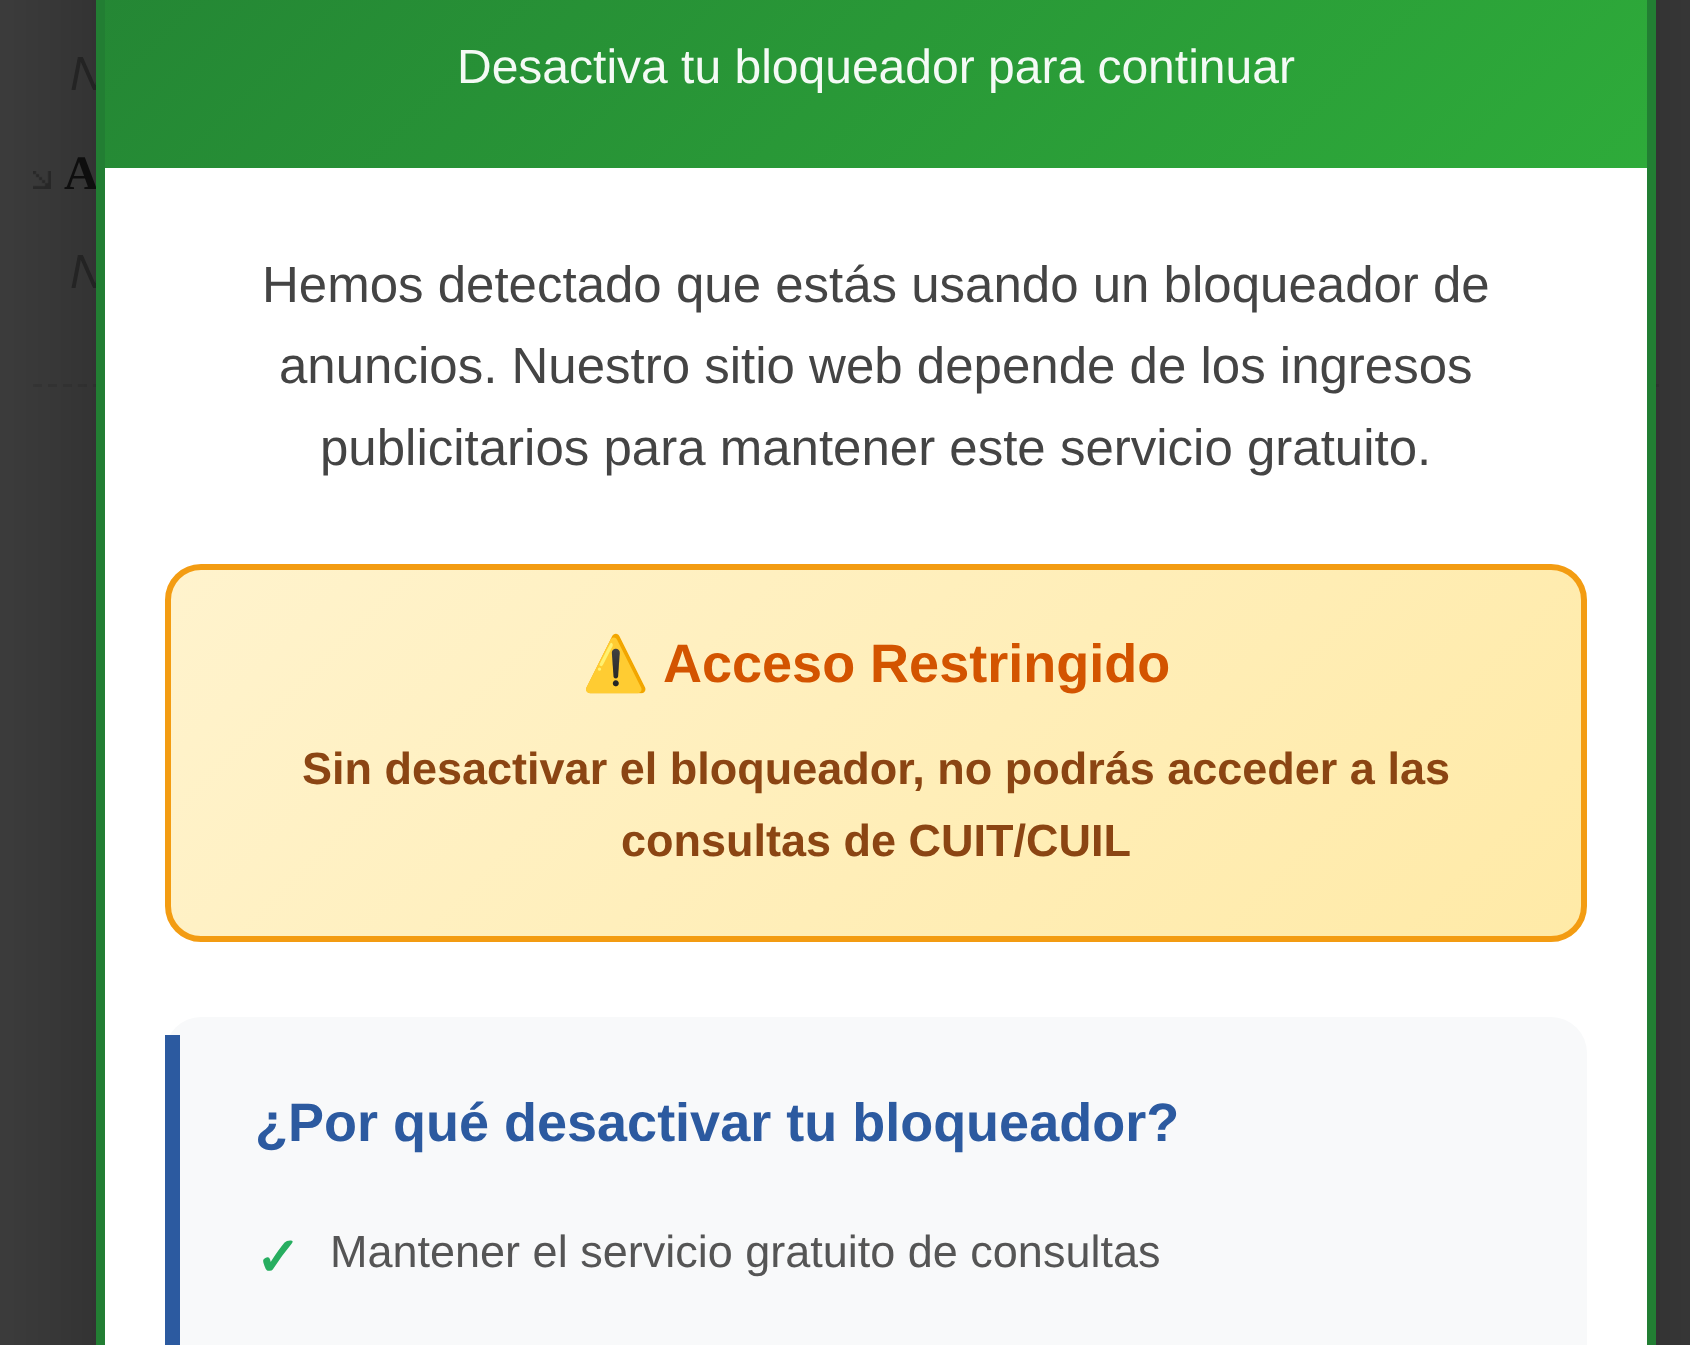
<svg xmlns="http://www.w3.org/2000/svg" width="1690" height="1345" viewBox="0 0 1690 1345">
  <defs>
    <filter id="blur1" x="-50%" y="-200%" width="200%" height="500%"><feGaussianBlur stdDeviation="105"/></filter>
    <linearGradient id="g1" gradientUnits="userSpaceOnUse" x1="345" y1="-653" x2="1407" y2="409"><stop offset="0" stop-color="#227e33"/><stop offset="1" stop-color="#2eab3a"/></linearGradient>
    <clipPath id="clip1"><rect x="165" y="564" width="1422" height="378" rx="36"/></clipPath>
    <linearGradient id="g2" gradientUnits="userSpaceOnUse" x1="432" y1="310" x2="1320" y2="1198"><stop offset="0" stop-color="#fff3cd"/><stop offset="1" stop-color="#ffeaa7"/></linearGradient>
  </defs>
  <rect width="100%" height="100%" fill="#404040"/>
  <text x="70" y="90" font-family="Liberation Sans" font-size="48" font-style="italic" fill="#2b2b2b">N</text>
  <image x="33" y="171" width="18" height="18" href="img1.png"/>
  <text x="64" y="189" font-family="Liberation Serif" font-size="48" font-weight="bold" fill="#111111">A</text>
  <text x="70" y="288" font-family="Liberation Sans" font-size="48" font-style="italic" fill="#2b2b2b">N</text>
  <path d="M33 385.5H1659" fill="none" stroke="#3a3a3a" stroke-width="3" stroke-dasharray="9 5.97"/>
  <rect x="96" y="-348" width="1560" height="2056" rx="48" fill="#000000" fill-opacity="0.4" filter="url(#blur1)"/>
  <rect x="105" y="168" width="1542" height="1177" fill="#ffffff"/>
  <rect x="100.5" y="-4.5" width="1551" height="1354" fill="none" stroke="#227e33" stroke-width="9"/>
  <rect x="105" y="0" width="1542" height="168" fill="url(#g1)"/>
  <text x="457" y="83" font-family="Liberation Sans" font-size="48" fill="#f4faf5">Desactiva tu bloqueador para continuar</text>
  <text x="262" y="302" font-family="Liberation Sans" font-size="51" fill="#444444">Hemos detectado que estás usando un bloqueador de</text>
  <text x="279" y="383" font-family="Liberation Sans" font-size="51" fill="#444444">anuncios. Nuestro sitio web depende de los ingresos</text>
  <text x="320" y="465" font-family="Liberation Sans" font-size="51" fill="#444444">publicitarios para mantener este servicio gratuito.</text>
  <g clip-path="url(#clip1)">
    <rect x="171" y="570" width="1410" height="366" fill="url(#g2)"/>
  </g>
  <rect x="168" y="567" width="1416" height="372" rx="33" fill="none" stroke="#f39c12" stroke-width="6"/>
  <text x="582" y="682" font-family="Noto Color Emoji" font-size="54" font-weight="bold" fill="#d35400">⚠️</text>
  <text x="663" y="682" font-family="Liberation Sans" font-size="54" font-weight="bold" fill="#d35400">Acceso Restringido</text>
  <text x="302" y="784" font-family="Liberation Sans" font-size="45" font-weight="bold" fill="#8b4513">Sin desactivar el bloqueador, no podrás acceder a las</text>
  <text x="621" y="856" font-family="Liberation Sans" font-size="45" font-weight="bold" fill="#8b4513">consultas de CUIT/CUIL</text>
  <rect x="165" y="1017" width="1422" height="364" rx="36" fill="#f8f9fa"/>
  <rect x="165" y="1035" width="15" height="310" fill="#2c5aa0"/>
  <text x="255" y="1141" font-family="Liberation Sans" font-size="54" font-weight="bold" fill="#2c5aa0">¿Por qué desactivar tu bloqueador?</text>
  <text x="255" y="1276" font-family="DejaVu Sans" font-size="54" font-weight="bold" fill="#27ae60">✓</text>
  <text x="330" y="1267" font-family="Liberation Sans" font-size="45" fill="#555555">Mantener el servicio gratuito de consultas</text>
</svg>
